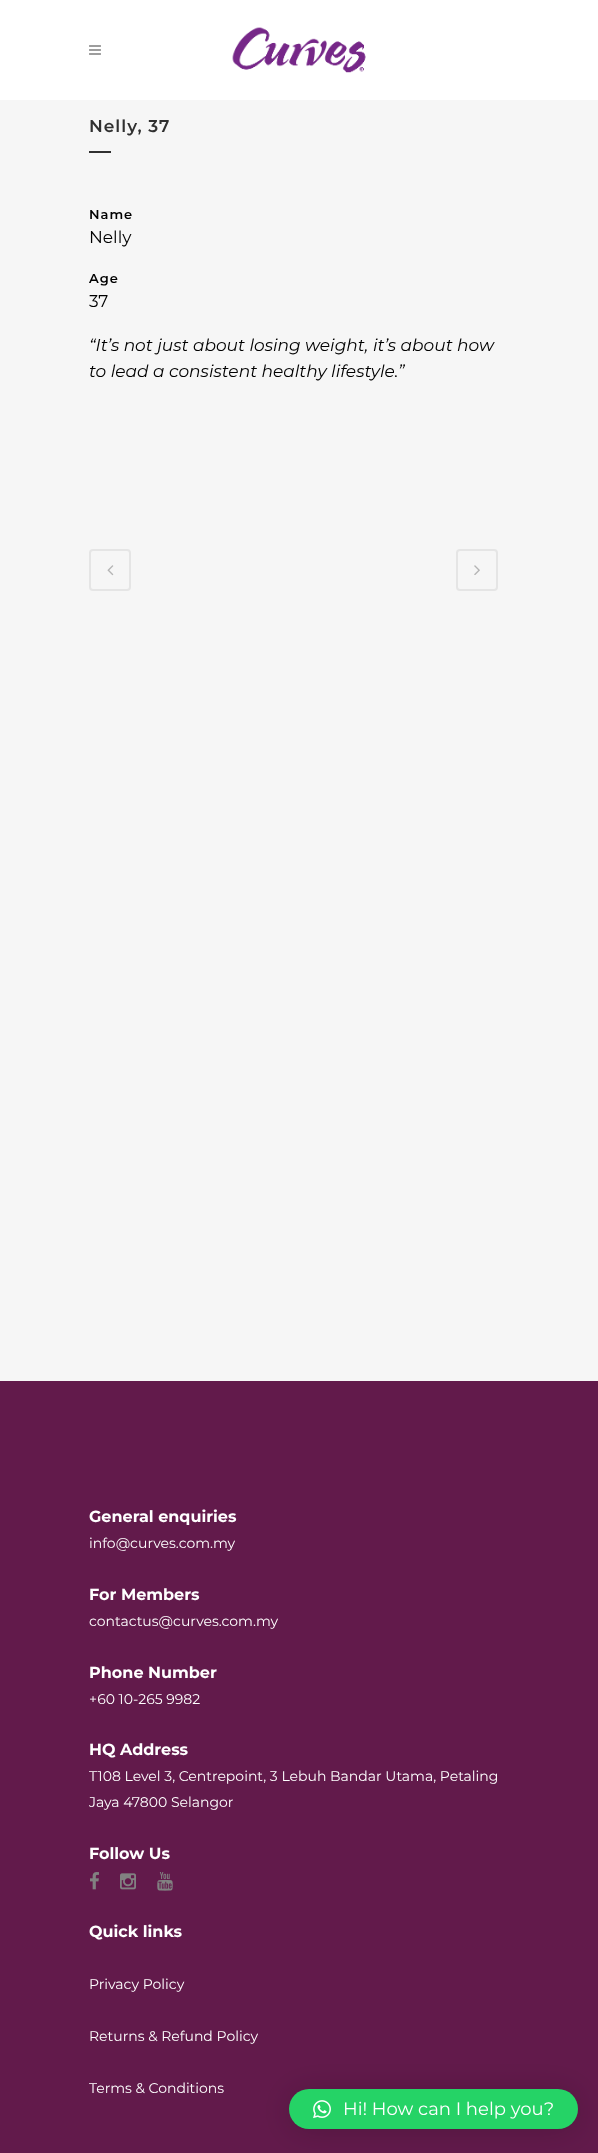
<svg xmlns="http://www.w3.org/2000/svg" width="598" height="2153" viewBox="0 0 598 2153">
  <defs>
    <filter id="blur1" x="-50%" y="-200%" width="200%" height="500%"><feGaussianBlur stdDeviation="16"/></filter>
  </defs>
  <rect width="100%" height="100%" fill="#f6f6f6"/>
  <rect x="0" y="0" width="598" height="100" fill="#ffffff"/>
  <image x="89" y="45" width="12" height="10" href="img1.png"/>
  <image x="232" y="27" width="134" height="46" href="img2.png"/>
  <text x="89" y="132" font-family="Montserrat" font-size="17" font-weight="600" letter-spacing="1" fill="#303030">Nelly, 37</text>
  <rect x="89" y="151" width="22" height="2" fill="#303030"/>
  <text x="89" y="219" font-family="Montserrat" font-size="13" font-weight="600" letter-spacing="1" fill="#000000">Name</text>
  <text x="89" y="243" font-family="Montserrat" font-size="17" fill="#000000">Nelly</text>
  <text x="89" y="283" font-family="Montserrat" font-size="13" font-weight="600" letter-spacing="1" fill="#000000">Age</text>
  <text x="89" y="307" font-family="Montserrat" font-size="17" fill="#000000">37</text>
  <text x="89" y="351" font-family="Montserrat" font-size="17" font-style="italic" fill="#000000">“It’s not just about losing weight, it’s about how</text>
  <text x="89" y="377" font-family="Montserrat" font-size="17" font-style="italic" fill="#000000">to lead a consistent healthy lifestyle.”</text>
  <rect x="90" y="550" width="40" height="40" rx="3" fill="none" stroke="#e5e5e5" stroke-width="2"/>
  <image x="107" y="565" width="7" height="11" href="img3.png"/>
  <rect x="457" y="550" width="40" height="40" rx="3" fill="none" stroke="#e5e5e5" stroke-width="2"/>
  <image x="474" y="565" width="6" height="10" href="img4.png"/>
  <rect x="0" y="1381" width="598" height="772" fill="#621a4b"/>
  <text x="89" y="1522" font-family="Montserrat" font-size="16" font-weight="bold" fill="#ffffff">General enquiries</text>
  <text x="89" y="1548" font-family="Montserrat" font-size="14" fill="#ffffff">info@curves.com.my</text>
  <text x="89" y="1600" font-family="Montserrat" font-size="16" font-weight="bold" fill="#ffffff">For Members</text>
  <text x="89" y="1626" font-family="Montserrat" font-size="14" fill="#ffffff">contactus@curves.com.my</text>
  <text x="89" y="1678" font-family="Montserrat" font-size="16" font-weight="bold" fill="#ffffff">Phone Number</text>
  <text x="89" y="1704" font-family="Montserrat" font-size="14" fill="#ffffff">+60 10-265 9982</text>
  <text x="89" y="1755" font-family="Montserrat" font-size="16" font-weight="bold" fill="#ffffff">HQ Address</text>
  <text x="89" y="1781" font-family="Montserrat" font-size="14" fill="#ffffff">T108 Level 3, Centrepoint, 3 Lebuh Bandar Utama, Petaling</text>
  <text x="89" y="1807" font-family="Montserrat" font-size="14" fill="#ffffff">Jaya 47800 Selangor</text>
  <text x="89" y="1859" font-family="Montserrat" font-size="16" font-weight="bold" fill="#ffffff">Follow Us</text>
  <image x="90" y="1872" width="9" height="18" href="img5.png"/>
  <image x="120" y="1873" width="16" height="17" href="img6.png"/>
  <image x="157" y="1872" width="16" height="19" href="img7.png"/>
  <text x="89" y="1937" font-family="Montserrat" font-size="16" font-weight="bold" fill="#ffffff">Quick links</text>
  <text x="89" y="1989" font-family="Montserrat" font-size="14" fill="#ffffff">Privacy Policy</text>
  <text x="89" y="2041" font-family="Montserrat" font-size="14" fill="#ffffff">Returns &amp; Refund Policy</text>
  <text x="89" y="2093" font-family="Montserrat" font-size="14" fill="#ffffff">Terms &amp; Conditions</text>
  <rect x="289" y="2091" width="289" height="40" rx="20" fill="#000000" fill-opacity="0.16" filter="url(#blur1)"/>
  <rect x="289" y="2089" width="289" height="40" rx="20" fill="#25d366"/>
  <image x="313" y="2100" width="18" height="19" href="img8.png"/>
  <text x="343" y="2115" font-family="Montserrat" font-size="18" fill="#ffffff">Hi! How can I help you?</text>
</svg>
